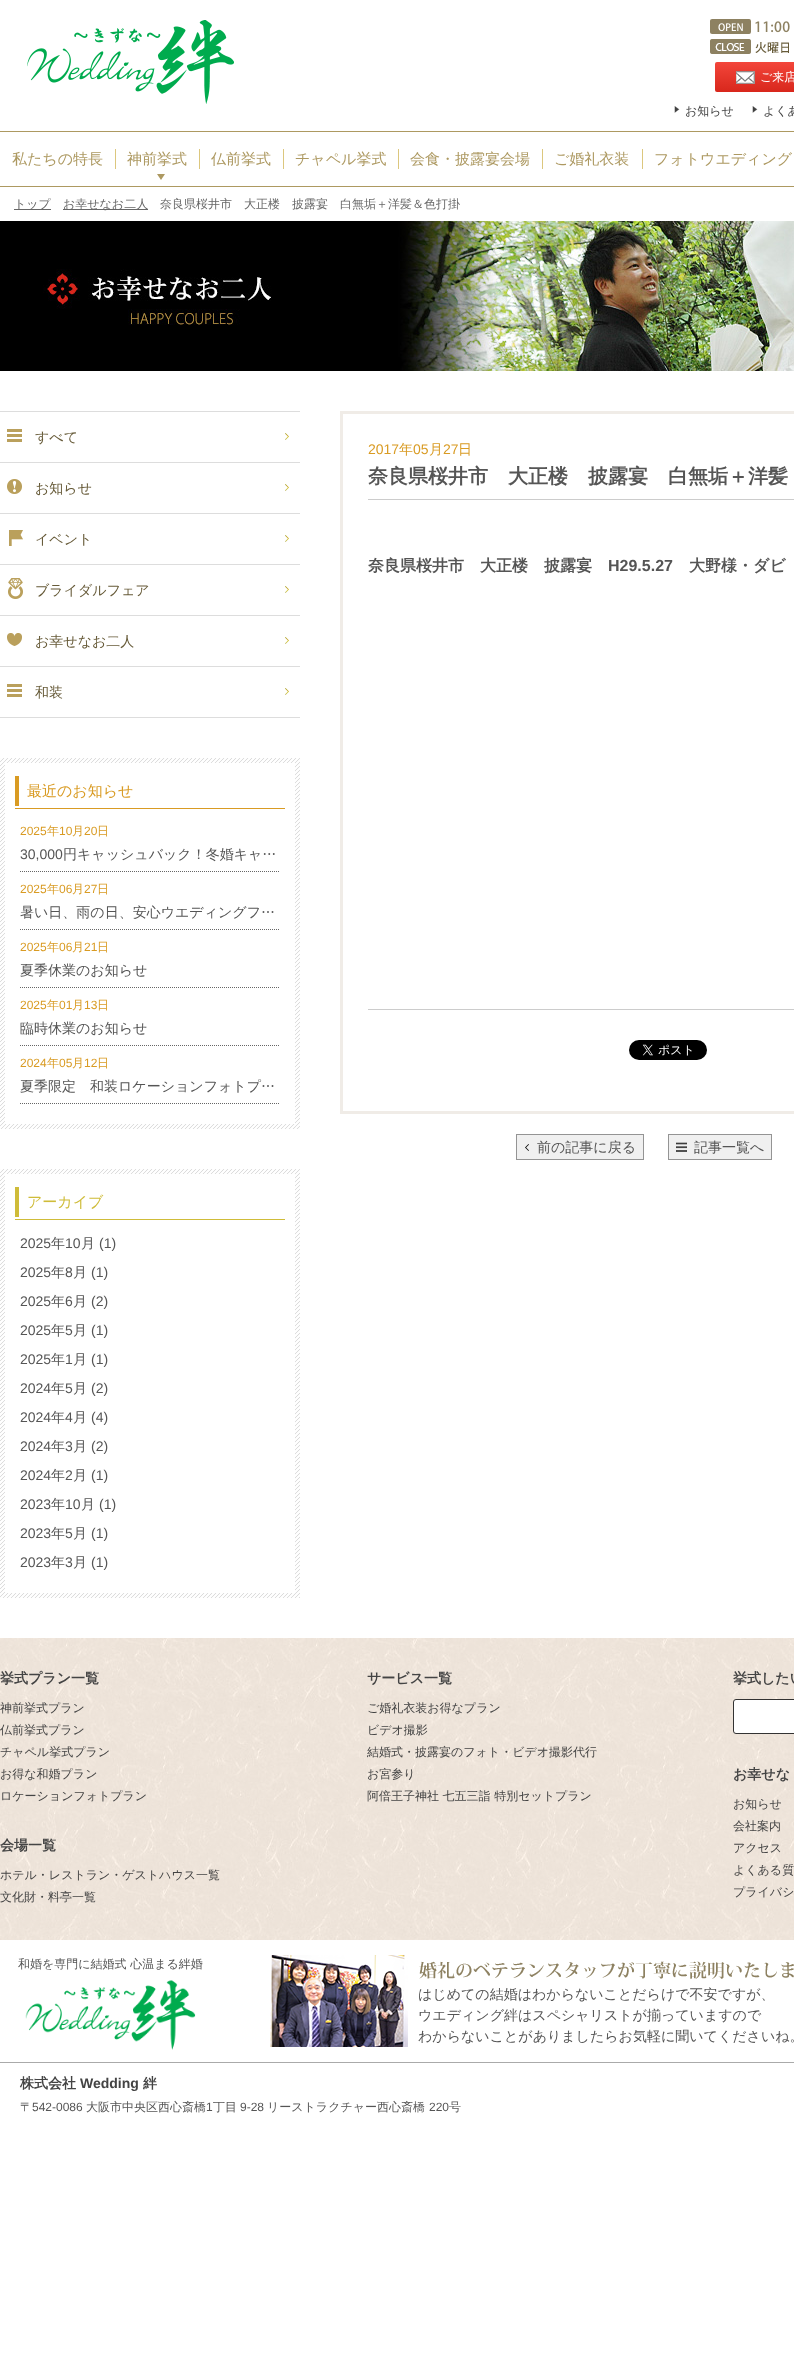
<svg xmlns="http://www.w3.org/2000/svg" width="794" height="2380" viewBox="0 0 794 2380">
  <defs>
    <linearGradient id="g1" gradientUnits="userSpaceOnUse" x1="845" y1="62" x2="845" y2="92"><stop offset="0" stop-color="#f3463b"/><stop offset="1" stop-color="#d8271c"/></linearGradient>
  </defs>
  <rect width="100%" height="100%" fill="#ffffff"/>
  <image x="27" y="20" width="207" height="84" href="img1.png"/>
  <image x="710" y="19" width="80" height="15" href="img2.png"/>
  <image x="710" y="39" width="79" height="15" href="img3.png"/>
  <rect x="715" y="62" width="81" height="30" rx="2" fill="url(#g1)"/>
  <image x="736" y="71" width="19" height="13" href="img4.png"/>
  <text x="760" y="81" font-family="WenQuanYi Zen Hei" font-size="12" font-weight="500" fill="#ffffff">ご来店</text>
  <image x="674" y="106" width="6" height="7" href="img5.png"/>
  <text x="685" y="115" font-family="WenQuanYi Zen Hei" font-size="12" font-weight="500" fill="#444444">お知らせ</text>
  <image x="752" y="106" width="6" height="7" href="img5.png"/>
  <text x="763" y="115" font-family="WenQuanYi Zen Hei" font-size="12" font-weight="500" fill="#444444">よくあ</text>
  <rect x="0" y="131" width="794" height="1" fill="#ad9961"/>
  <rect x="0" y="186" width="794" height="1" fill="#ad9961"/>
  <text x="12" y="164" font-family="WenQuanYi Zen Hei" font-size="15" font-weight="500" fill="#ad9961">私たちの特長</text>
  <rect x="115" y="149" width="1" height="20" fill="#dcc77e"/>
  <text x="127" y="164" font-family="WenQuanYi Zen Hei" font-size="15" font-weight="500" fill="#ad9961">神前挙式</text>
  <path d="M157 174H165L161 180Z" fill="#ad9961"/>
  <rect x="199" y="149" width="1" height="20" fill="#dcc77e"/>
  <text x="211" y="164" font-family="WenQuanYi Zen Hei" font-size="15" font-weight="500" fill="#ad9961">仏前挙式</text>
  <rect x="283" y="149" width="1" height="20" fill="#dcc77e"/>
  <text x="295" y="164" font-family="WenQuanYi Zen Hei" font-size="15" font-weight="500" fill="#ad9961">チャペル挙式</text>
  <rect x="398" y="149" width="1" height="20" fill="#dcc77e"/>
  <text x="410" y="164" font-family="WenQuanYi Zen Hei" font-size="15" font-weight="500" fill="#ad9961">会食・披露宴会場</text>
  <rect x="542" y="149" width="1" height="20" fill="#dcc77e"/>
  <text x="554" y="164" font-family="WenQuanYi Zen Hei" font-size="15" font-weight="500" fill="#ad9961">ご婚礼衣装</text>
  <rect x="642" y="149" width="1" height="20" fill="#dcc77e"/>
  <text x="654" y="164" font-family="WenQuanYi Zen Hei" font-size="15" font-weight="500" fill="#ad9961">フォトウエディング</text>
  <rect x="14" y="209" width="37" height="1" fill="#676767"/>
  <text x="14" y="208" font-family="WenQuanYi Zen Hei" font-size="12" font-weight="500" fill="#676767">トップ</text>
  <rect x="63" y="209" width="85" height="1" fill="#676767"/>
  <text x="63" y="208" font-family="WenQuanYi Zen Hei" font-size="12" font-weight="500" fill="#676767">お幸せなお二人</text>
  <text x="160" y="208" font-family="WenQuanYi Zen Hei" font-size="12" font-weight="500" fill="#676767">奈良県桜井市　大正楼　披露宴　白無垢＋洋髪＆色打掛</text>
  <rect x="0" y="221" width="43" height="150" fill="#000000"/>
  <image x="43" y="221" width="751" height="150" href="img6.png"/>
  <rect x="0" y="411" width="300" height="1" fill="#dddddd"/>
  <rect x="0" y="462" width="300" height="1" fill="#dddddd"/>
  <image x="7" y="429" width="15" height="13" href="img7.png"/>
  <text x="35" y="442" font-family="WenQuanYi Zen Hei" font-size="14" font-weight="500" fill="#675b39">すべて</text>
  <image x="285" y="433" width="4" height="7" href="img8.png"/>
  <rect x="0" y="513" width="300" height="1" fill="#dddddd"/>
  <image x="7" y="479" width="15" height="15" href="img9.png"/>
  <text x="35" y="493" font-family="WenQuanYi Zen Hei" font-size="14" font-weight="500" fill="#675b39">お知らせ</text>
  <image x="285" y="484" width="4" height="7" href="img8.png"/>
  <rect x="0" y="564" width="300" height="1" fill="#dddddd"/>
  <image x="9" y="530" width="14" height="16" href="img10.png"/>
  <text x="35" y="544" font-family="WenQuanYi Zen Hei" font-size="14" font-weight="500" fill="#675b39">イベント</text>
  <image x="285" y="535" width="4" height="7" href="img8.png"/>
  <rect x="0" y="615" width="300" height="1" fill="#dddddd"/>
  <image x="8" y="578" width="15" height="21" href="img11.png"/>
  <text x="35" y="595" font-family="WenQuanYi Zen Hei" font-size="14" font-weight="500" fill="#675b39">ブライダルフェア</text>
  <image x="285" y="586" width="4" height="7" href="img8.png"/>
  <rect x="0" y="666" width="300" height="1" fill="#dddddd"/>
  <image x="7" y="633" width="15" height="13" href="img12.png"/>
  <text x="35" y="646" font-family="WenQuanYi Zen Hei" font-size="14" font-weight="500" fill="#675b39">お幸せなお二人</text>
  <image x="285" y="637" width="4" height="7" href="img8.png"/>
  <rect x="0" y="717" width="300" height="1" fill="#dddddd"/>
  <image x="7" y="684" width="15" height="13" href="img7.png"/>
  <text x="35" y="697" font-family="WenQuanYi Zen Hei" font-size="14" font-weight="500" fill="#675b39">和装</text>
  <image x="285" y="688" width="4" height="7" href="img8.png"/>
  <image x="0" y="758" width="300" height="371" href="img13.png"/>
  <rect x="5" y="763" width="290" height="361" fill="#ffffff"/>
  <rect x="15" y="808" width="270" height="1" fill="#d99b23"/>
  <rect x="15" y="776" width="4" height="30" fill="#d99b23"/>
  <text x="27" y="796" font-family="WenQuanYi Zen Hei" font-size="15" font-weight="500" fill="#d99b23">最近のお知らせ</text>
  <path d="M20 871.5H280" fill="none" stroke="#666666" stroke-dasharray="1 1"/>
  <text x="20" y="835" font-family="Liberation Sans" font-size="12" fill="#d99b23">2025</text>
  <text x="47" y="835" font-family="WenQuanYi Zen Hei" font-size="12" font-weight="500" fill="#d99b23">年</text>
  <text x="59" y="835" font-family="Liberation Sans" font-size="12" fill="#d99b23">10</text>
  <text x="72" y="835" font-family="WenQuanYi Zen Hei" font-size="12" font-weight="500" fill="#d99b23">月</text>
  <text x="84" y="835" font-family="Liberation Sans" font-size="12" fill="#d99b23">20</text>
  <text x="97" y="835" font-family="WenQuanYi Zen Hei" font-size="12" font-weight="500" fill="#d99b23">日</text>
  <text x="20" y="859" font-family="Liberation Sans" font-size="14" fill="#555555">30,000</text>
  <text x="63" y="859" font-family="WenQuanYi Zen Hei" font-size="14" font-weight="500" fill="#555555">円キャッシュバック！冬婚キャ…</text>
  <path d="M20 929.5H280" fill="none" stroke="#666666" stroke-dasharray="1 1"/>
  <text x="20" y="893" font-family="Liberation Sans" font-size="12" fill="#d99b23">2025</text>
  <text x="47" y="893" font-family="WenQuanYi Zen Hei" font-size="12" font-weight="500" fill="#d99b23">年</text>
  <text x="59" y="893" font-family="Liberation Sans" font-size="12" fill="#d99b23">06</text>
  <text x="72" y="893" font-family="WenQuanYi Zen Hei" font-size="12" font-weight="500" fill="#d99b23">月</text>
  <text x="84" y="893" font-family="Liberation Sans" font-size="12" fill="#d99b23">27</text>
  <text x="97" y="893" font-family="WenQuanYi Zen Hei" font-size="12" font-weight="500" fill="#d99b23">日</text>
  <text x="20" y="917" font-family="WenQuanYi Zen Hei" font-size="14" font-weight="500" fill="#555555">暑い日、雨の日、安心ウエディングフ…</text>
  <path d="M20 987.5H280" fill="none" stroke="#666666" stroke-dasharray="1 1"/>
  <text x="20" y="951" font-family="Liberation Sans" font-size="12" fill="#d99b23">2025</text>
  <text x="47" y="951" font-family="WenQuanYi Zen Hei" font-size="12" font-weight="500" fill="#d99b23">年</text>
  <text x="59" y="951" font-family="Liberation Sans" font-size="12" fill="#d99b23">06</text>
  <text x="72" y="951" font-family="WenQuanYi Zen Hei" font-size="12" font-weight="500" fill="#d99b23">月</text>
  <text x="84" y="951" font-family="Liberation Sans" font-size="12" fill="#d99b23">21</text>
  <text x="97" y="951" font-family="WenQuanYi Zen Hei" font-size="12" font-weight="500" fill="#d99b23">日</text>
  <text x="20" y="975" font-family="WenQuanYi Zen Hei" font-size="14" font-weight="500" fill="#555555">夏季休業のお知らせ</text>
  <path d="M20 1045.5H280" fill="none" stroke="#666666" stroke-dasharray="1 1"/>
  <text x="20" y="1009" font-family="Liberation Sans" font-size="12" fill="#d99b23">2025</text>
  <text x="47" y="1009" font-family="WenQuanYi Zen Hei" font-size="12" font-weight="500" fill="#d99b23">年</text>
  <text x="59" y="1009" font-family="Liberation Sans" font-size="12" fill="#d99b23">01</text>
  <text x="72" y="1009" font-family="WenQuanYi Zen Hei" font-size="12" font-weight="500" fill="#d99b23">月</text>
  <text x="84" y="1009" font-family="Liberation Sans" font-size="12" fill="#d99b23">13</text>
  <text x="97" y="1009" font-family="WenQuanYi Zen Hei" font-size="12" font-weight="500" fill="#d99b23">日</text>
  <text x="20" y="1033" font-family="WenQuanYi Zen Hei" font-size="14" font-weight="500" fill="#555555">臨時休業のお知らせ</text>
  <path d="M20 1103.5H280" fill="none" stroke="#666666" stroke-dasharray="1 1"/>
  <text x="20" y="1067" font-family="Liberation Sans" font-size="12" fill="#d99b23">2024</text>
  <text x="47" y="1067" font-family="WenQuanYi Zen Hei" font-size="12" font-weight="500" fill="#d99b23">年</text>
  <text x="59" y="1067" font-family="Liberation Sans" font-size="12" fill="#d99b23">05</text>
  <text x="72" y="1067" font-family="WenQuanYi Zen Hei" font-size="12" font-weight="500" fill="#d99b23">月</text>
  <text x="84" y="1067" font-family="Liberation Sans" font-size="12" fill="#d99b23">12</text>
  <text x="97" y="1067" font-family="WenQuanYi Zen Hei" font-size="12" font-weight="500" fill="#d99b23">日</text>
  <text x="20" y="1091" font-family="WenQuanYi Zen Hei" font-size="14" font-weight="500" fill="#555555">夏季限定　和装ロケーションフォトプ…</text>
  <image x="0" y="1169" width="300" height="429" href="img14.png"/>
  <rect x="5" y="1174" width="290" height="419" fill="#ffffff"/>
  <rect x="15" y="1219" width="270" height="1" fill="#cfbc39"/>
  <rect x="15" y="1187" width="4" height="30" fill="#cfbc39"/>
  <text x="27" y="1207" font-family="WenQuanYi Zen Hei" font-size="15" font-weight="500" fill="#cfbc39">アーカイブ</text>
  <text x="20" y="1248" font-family="Liberation Sans" font-size="14" fill="#555555">2025</text>
  <text x="51" y="1248" font-family="WenQuanYi Zen Hei" font-size="14" font-weight="500" fill="#555555">年</text>
  <text x="65" y="1248" font-family="Liberation Sans" font-size="14" fill="#555555">10</text>
  <text x="81" y="1248" font-family="WenQuanYi Zen Hei" font-size="14" font-weight="500" fill="#555555">月</text>
  <text x="99" y="1248" font-family="Liberation Sans" font-size="14" fill="#555555">(1)</text>
  <text x="20" y="1277" font-family="Liberation Sans" font-size="14" fill="#555555">2025</text>
  <text x="51" y="1277" font-family="WenQuanYi Zen Hei" font-size="14" font-weight="500" fill="#555555">年</text>
  <text x="65" y="1277" font-family="Liberation Sans" font-size="14" fill="#555555">8</text>
  <text x="73" y="1277" font-family="WenQuanYi Zen Hei" font-size="14" font-weight="500" fill="#555555">月</text>
  <text x="91" y="1277" font-family="Liberation Sans" font-size="14" fill="#555555">(1)</text>
  <text x="20" y="1306" font-family="Liberation Sans" font-size="14" fill="#555555">2025</text>
  <text x="51" y="1306" font-family="WenQuanYi Zen Hei" font-size="14" font-weight="500" fill="#555555">年</text>
  <text x="65" y="1306" font-family="Liberation Sans" font-size="14" fill="#555555">6</text>
  <text x="73" y="1306" font-family="WenQuanYi Zen Hei" font-size="14" font-weight="500" fill="#555555">月</text>
  <text x="91" y="1306" font-family="Liberation Sans" font-size="14" fill="#555555">(2)</text>
  <text x="20" y="1335" font-family="Liberation Sans" font-size="14" fill="#555555">2025</text>
  <text x="51" y="1335" font-family="WenQuanYi Zen Hei" font-size="14" font-weight="500" fill="#555555">年</text>
  <text x="65" y="1335" font-family="Liberation Sans" font-size="14" fill="#555555">5</text>
  <text x="73" y="1335" font-family="WenQuanYi Zen Hei" font-size="14" font-weight="500" fill="#555555">月</text>
  <text x="91" y="1335" font-family="Liberation Sans" font-size="14" fill="#555555">(1)</text>
  <text x="20" y="1364" font-family="Liberation Sans" font-size="14" fill="#555555">2025</text>
  <text x="51" y="1364" font-family="WenQuanYi Zen Hei" font-size="14" font-weight="500" fill="#555555">年</text>
  <text x="65" y="1364" font-family="Liberation Sans" font-size="14" fill="#555555">1</text>
  <text x="73" y="1364" font-family="WenQuanYi Zen Hei" font-size="14" font-weight="500" fill="#555555">月</text>
  <text x="91" y="1364" font-family="Liberation Sans" font-size="14" fill="#555555">(1)</text>
  <text x="20" y="1393" font-family="Liberation Sans" font-size="14" fill="#555555">2024</text>
  <text x="51" y="1393" font-family="WenQuanYi Zen Hei" font-size="14" font-weight="500" fill="#555555">年</text>
  <text x="65" y="1393" font-family="Liberation Sans" font-size="14" fill="#555555">5</text>
  <text x="73" y="1393" font-family="WenQuanYi Zen Hei" font-size="14" font-weight="500" fill="#555555">月</text>
  <text x="91" y="1393" font-family="Liberation Sans" font-size="14" fill="#555555">(2)</text>
  <text x="20" y="1422" font-family="Liberation Sans" font-size="14" fill="#555555">2024</text>
  <text x="51" y="1422" font-family="WenQuanYi Zen Hei" font-size="14" font-weight="500" fill="#555555">年</text>
  <text x="65" y="1422" font-family="Liberation Sans" font-size="14" fill="#555555">4</text>
  <text x="73" y="1422" font-family="WenQuanYi Zen Hei" font-size="14" font-weight="500" fill="#555555">月</text>
  <text x="91" y="1422" font-family="Liberation Sans" font-size="14" fill="#555555">(4)</text>
  <text x="20" y="1451" font-family="Liberation Sans" font-size="14" fill="#555555">2024</text>
  <text x="51" y="1451" font-family="WenQuanYi Zen Hei" font-size="14" font-weight="500" fill="#555555">年</text>
  <text x="65" y="1451" font-family="Liberation Sans" font-size="14" fill="#555555">3</text>
  <text x="73" y="1451" font-family="WenQuanYi Zen Hei" font-size="14" font-weight="500" fill="#555555">月</text>
  <text x="91" y="1451" font-family="Liberation Sans" font-size="14" fill="#555555">(2)</text>
  <text x="20" y="1480" font-family="Liberation Sans" font-size="14" fill="#555555">2024</text>
  <text x="51" y="1480" font-family="WenQuanYi Zen Hei" font-size="14" font-weight="500" fill="#555555">年</text>
  <text x="65" y="1480" font-family="Liberation Sans" font-size="14" fill="#555555">2</text>
  <text x="73" y="1480" font-family="WenQuanYi Zen Hei" font-size="14" font-weight="500" fill="#555555">月</text>
  <text x="91" y="1480" font-family="Liberation Sans" font-size="14" fill="#555555">(1)</text>
  <text x="20" y="1509" font-family="Liberation Sans" font-size="14" fill="#555555">2023</text>
  <text x="51" y="1509" font-family="WenQuanYi Zen Hei" font-size="14" font-weight="500" fill="#555555">年</text>
  <text x="65" y="1509" font-family="Liberation Sans" font-size="14" fill="#555555">10</text>
  <text x="81" y="1509" font-family="WenQuanYi Zen Hei" font-size="14" font-weight="500" fill="#555555">月</text>
  <text x="99" y="1509" font-family="Liberation Sans" font-size="14" fill="#555555">(1)</text>
  <text x="20" y="1538" font-family="Liberation Sans" font-size="14" fill="#555555">2023</text>
  <text x="51" y="1538" font-family="WenQuanYi Zen Hei" font-size="14" font-weight="500" fill="#555555">年</text>
  <text x="65" y="1538" font-family="Liberation Sans" font-size="14" fill="#555555">5</text>
  <text x="73" y="1538" font-family="WenQuanYi Zen Hei" font-size="14" font-weight="500" fill="#555555">月</text>
  <text x="91" y="1538" font-family="Liberation Sans" font-size="14" fill="#555555">(1)</text>
  <text x="20" y="1567" font-family="Liberation Sans" font-size="14" fill="#555555">2023</text>
  <text x="51" y="1567" font-family="WenQuanYi Zen Hei" font-size="14" font-weight="500" fill="#555555">年</text>
  <text x="65" y="1567" font-family="Liberation Sans" font-size="14" fill="#555555">3</text>
  <text x="73" y="1567" font-family="WenQuanYi Zen Hei" font-size="14" font-weight="500" fill="#555555">月</text>
  <text x="91" y="1567" font-family="Liberation Sans" font-size="14" fill="#555555">(1)</text>
  <rect x="341.5" y="412.5" width="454" height="700" fill="none" stroke="#f0ece7" stroke-width="3"/>
  <text x="368" y="454" font-family="Liberation Sans" font-size="14" fill="#d99b23">2017</text>
  <text x="399" y="454" font-family="WenQuanYi Zen Hei" font-size="14" font-weight="500" fill="#d99b23">年</text>
  <text x="413" y="454" font-family="Liberation Sans" font-size="14" fill="#d99b23">05</text>
  <text x="429" y="454" font-family="WenQuanYi Zen Hei" font-size="14" font-weight="500" fill="#d99b23">月</text>
  <text x="443" y="454" font-family="Liberation Sans" font-size="14" fill="#d99b23">27</text>
  <text x="458" y="454" font-family="WenQuanYi Zen Hei" font-size="14" font-weight="500" fill="#d99b23">日</text>
  <text x="368" y="483" font-family="WenQuanYi Zen Hei" font-size="20" font-weight="bold" fill="#555555">奈良県桜井市　大正楼　披露宴　白無垢＋洋髪</text>
  <rect x="368" y="499" width="426" height="1" fill="#cccccc"/>
  <rect x="368" y="1009" width="426" height="1" fill="#cccccc"/>
  <text x="368" y="571" font-family="WenQuanYi Zen Hei" font-size="16" font-weight="bold" fill="#555555">奈良県桜井市　大正楼　披露宴</text>
  <text x="608" y="571" font-family="Liberation Sans" font-size="16" font-weight="bold" fill="#555555">H29.5.27</text>
  <text x="689" y="571" font-family="WenQuanYi Zen Hei" font-size="16" font-weight="bold" fill="#555555">大野様・ダビ</text>
  <image x="629" y="1040" width="78" height="20" href="img15.png"/>
  <rect x="516.5" y="1134.5" width="127" height="25" fill="#f0f0f0" stroke="#949494"/>
  <image x="525" y="1144" width="4" height="7" href="img16.png"/>
  <text x="537" y="1152" font-family="WenQuanYi Zen Hei" font-size="14" font-weight="500" fill="#555555">前の記事に戻る</text>
  <rect x="669" y="1135" width="102" height="24" fill="#f0f0f0"/>
  <image x="676" y="1142" width="11" height="10" href="img17.png"/>
  <rect x="668.5" y="1134.5" width="103" height="25" fill="none" stroke="#949494"/>
  <text x="694" y="1152" font-family="WenQuanYi Zen Hei" font-size="14" font-weight="500" fill="#555555">記事一覧へ</text>
  <image x="0" y="1638" width="794" height="302" href="img18.png"/>
  <text x="0" y="1683" font-family="WenQuanYi Zen Hei" font-size="14" font-weight="bold" fill="#444444">挙式プラン一覧</text>
  <text x="0" y="1712" font-family="WenQuanYi Zen Hei" font-size="12" font-weight="500" fill="#444444">神前挙式プラン</text>
  <text x="0" y="1734" font-family="WenQuanYi Zen Hei" font-size="12" font-weight="500" fill="#444444">仏前挙式プラン</text>
  <text x="0" y="1756" font-family="WenQuanYi Zen Hei" font-size="12" font-weight="500" fill="#444444">チャペル挙式プラン</text>
  <text x="0" y="1778" font-family="WenQuanYi Zen Hei" font-size="12" font-weight="500" fill="#444444">お得な和婚プラン</text>
  <text x="0" y="1800" font-family="WenQuanYi Zen Hei" font-size="12" font-weight="500" fill="#444444">ロケーションフォトプラン</text>
  <text x="0" y="1850" font-family="WenQuanYi Zen Hei" font-size="14" font-weight="bold" fill="#444444">会場一覧</text>
  <text x="0" y="1879" font-family="WenQuanYi Zen Hei" font-size="12" font-weight="500" fill="#444444">ホテル・レストラン・ゲストハウス一覧</text>
  <text x="0" y="1901" font-family="WenQuanYi Zen Hei" font-size="12" font-weight="500" fill="#444444">文化財・料亭一覧</text>
  <text x="367" y="1683" font-family="WenQuanYi Zen Hei" font-size="14" font-weight="bold" fill="#444444">サービス一覧</text>
  <text x="367" y="1712" font-family="WenQuanYi Zen Hei" font-size="12" font-weight="500" fill="#444444">ご婚礼衣装お得なプラン</text>
  <text x="367" y="1734" font-family="WenQuanYi Zen Hei" font-size="12" font-weight="500" fill="#444444">ビデオ撮影</text>
  <text x="367" y="1756" font-family="WenQuanYi Zen Hei" font-size="12" font-weight="500" fill="#444444">結婚式・披露宴のフォト・ビデオ撮影代行</text>
  <text x="367" y="1778" font-family="WenQuanYi Zen Hei" font-size="12" font-weight="500" fill="#444444">お宮参り</text>
  <text x="367" y="1800" font-family="WenQuanYi Zen Hei" font-size="12" font-weight="500" fill="#444444">阿倍王子神社 七五三詣 特別セットプラン</text>
  <text x="733" y="1683" font-family="WenQuanYi Zen Hei" font-size="14" font-weight="bold" fill="#444444">挙式したい</text>
  <rect x="733.5" y="1699.5" width="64" height="34" rx="2.5" fill="#ffffff" stroke="#333333"/>
  <text x="733" y="1779" font-family="WenQuanYi Zen Hei" font-size="14" font-weight="bold" fill="#444444">お幸せな</text>
  <text x="733" y="1808" font-family="WenQuanYi Zen Hei" font-size="12" font-weight="500" fill="#444444">お知らせ</text>
  <text x="733" y="1830" font-family="WenQuanYi Zen Hei" font-size="12" font-weight="500" fill="#444444">会社案内</text>
  <text x="733" y="1852" font-family="WenQuanYi Zen Hei" font-size="12" font-weight="500" fill="#444444">アクセス</text>
  <text x="733" y="1874" font-family="WenQuanYi Zen Hei" font-size="12" font-weight="500" fill="#444444">よくある質</text>
  <text x="733" y="1896" font-family="WenQuanYi Zen Hei" font-size="12" font-weight="500" fill="#444444">プライバシ</text>
  <text x="18" y="1968" font-family="WenQuanYi Zen Hei" font-size="12" font-weight="500" fill="#555555">和婚を専門に結婚式 心温まる絆婚</text>
  <image x="25" y="1980" width="171" height="70" href="img19.png"/>
  <image x="270" y="1955" width="138" height="92" href="img20.png"/>
  <image x="419" y="1961" width="375" height="18" href="img21.png"/>
  <text x="418" y="1999" font-family="WenQuanYi Zen Hei" font-size="14" font-weight="500" fill="#555555">はじめての結婚はわからないことだらけで不安ですが、</text>
  <text x="418" y="2020" font-family="WenQuanYi Zen Hei" font-size="14" font-weight="500" fill="#555555">ウエディング絆はスペシャリストが揃っていますので</text>
  <text x="418" y="2041" font-family="WenQuanYi Zen Hei" font-size="14" font-weight="500" fill="#555555">わからないことがありましたらお気軽に聞いてくださいね。</text>
  <rect x="0" y="2062" width="794" height="1" fill="#aaaaaa"/>
  <text x="20" y="2088" font-family="WenQuanYi Zen Hei" font-size="14" font-weight="bold" fill="#444444">株式会社</text>
  <text x="80" y="2088" font-family="Liberation Sans" font-size="14" font-weight="bold" fill="#444444">Wedding</text>
  <text x="143" y="2088" font-family="WenQuanYi Zen Hei" font-size="14" font-weight="bold" fill="#444444">絆</text>
  <text x="20" y="2111" font-family="WenQuanYi Zen Hei" font-size="12" font-weight="500" fill="#555555">〒</text>
  <text x="32" y="2111" font-family="Liberation Sans" font-size="12" fill="#555555">542-0086</text>
  <text x="86" y="2111" font-family="WenQuanYi Zen Hei" font-size="12" font-weight="500" fill="#555555">大阪市中央区西心斎橋</text>
  <text x="206" y="2111" font-family="Liberation Sans" font-size="12" fill="#555555">1</text>
  <text x="213" y="2111" font-family="WenQuanYi Zen Hei" font-size="12" font-weight="500" fill="#555555">丁目</text>
  <text x="240" y="2111" font-family="Liberation Sans" font-size="12" fill="#555555">9-28</text>
  <text x="267" y="2111" font-family="WenQuanYi Zen Hei" font-size="12" font-weight="500" fill="#555555">リーストラクチャー西心斎橋</text>
  <text x="429" y="2111" font-family="Liberation Sans" font-size="12" fill="#555555">220</text>
  <text x="449" y="2111" font-family="WenQuanYi Zen Hei" font-size="12" font-weight="500" fill="#555555">号</text>
</svg>
